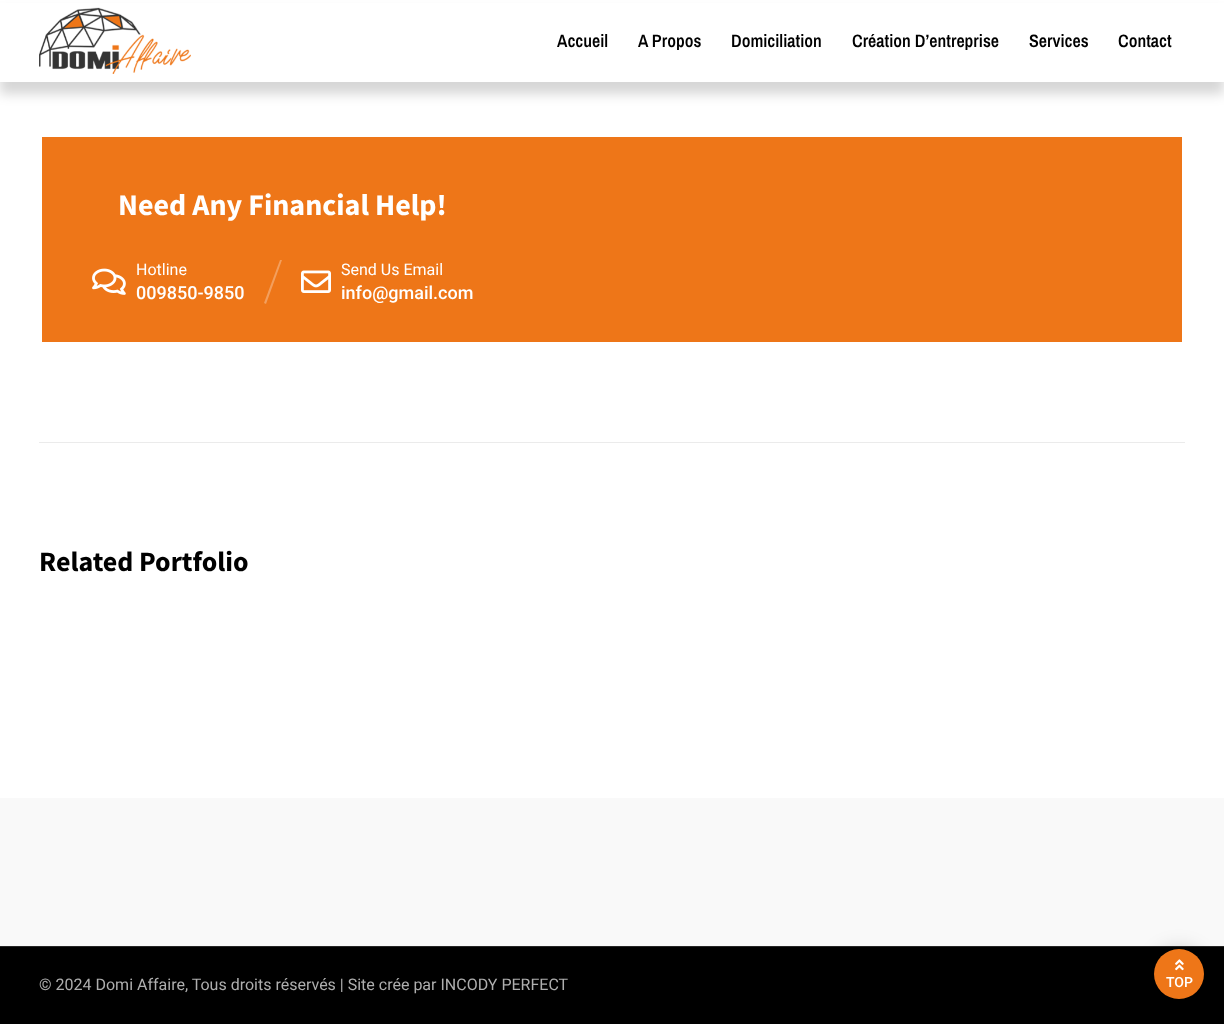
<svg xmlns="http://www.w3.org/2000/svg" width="1224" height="1024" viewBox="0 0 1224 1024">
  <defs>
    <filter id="blur1" x="-50%" y="-200%" width="200%" height="500%"><feGaussianBlur stdDeviation="6"/></filter>
    <filter id="blur2" x="-50%" y="-200%" width="200%" height="500%"><feGaussianBlur stdDeviation="10"/></filter>
  </defs>
  <rect width="100%" height="100%" fill="#ffffff"/>
  <rect x="0" y="12" width="1224" height="82" fill="#000000" fill-opacity="0.16" filter="url(#blur1)"/>
  <rect x="0" y="3" width="1224" height="79" fill="#ffffff"/>
  <image x="39" y="7" width="152" height="67" href="img1.png"/>
  <text x="557" y="47" font-family="Archivo Narrow" font-size="18" font-weight="600" fill="#000000">Accueil</text>
  <text x="638" y="47" font-family="Archivo Narrow" font-size="18" font-weight="600" fill="#000000">A Propos</text>
  <text x="731" y="47" font-family="Archivo Narrow" font-size="18" font-weight="600" fill="#000000">Domiciliation</text>
  <text x="852" y="47" font-family="Archivo Narrow" font-size="18" font-weight="600" fill="#000000">Création D’entreprise</text>
  <text x="1029" y="47" font-family="Archivo Narrow" font-size="18" font-weight="600" fill="#000000">Services</text>
  <text x="1118" y="47" font-family="Archivo Narrow" font-size="18" font-weight="600" fill="#000000">Contact</text>
  <rect x="42" y="137" width="1140" height="205" fill="#ee7618"/>
  <text x="118" y="215" font-family="Source Sans Pro" font-size="30" font-weight="bold" fill="#ffffff">Need Any Financial Help!</text>
  <image x="92" y="268" width="34" height="27" href="img2.png"/>
  <text x="136" y="275" font-family="Roboto" font-size="16" fill="#ffffff">Hotline</text>
  <text x="136" y="299" font-family="Roboto" font-size="18" font-weight="500" fill="#ffffff">009850-9850</text>
  <path d="M280 260H282L266 304L264 303Z" fill="#f39f5d"/>
  <image x="301" y="270" width="30" height="23" href="img3.png"/>
  <text x="341" y="275" font-family="Roboto" font-size="16" fill="#ffffff">Send Us Email</text>
  <text x="341" y="299" font-family="Roboto" font-size="18" font-weight="500" fill="#ffffff">info@gmail.com</text>
  <rect x="39" y="442" width="1146" height="1" fill="#ebebeb"/>
  <text x="39" y="571" font-family="Source Sans Pro" font-size="28" font-weight="bold" fill="#000000">Related Portfolio</text>
  <rect x="0" y="798" width="1224" height="148" fill="#f9f9f9"/>
  <rect x="0" y="947" width="1224" height="77" fill="#000000"/>
  <rect x="0" y="946" width="1224" height="1" fill="#262626"/>
  <text x="39" y="990" font-family="Roboto" font-size="16" fill="#aeaeae">© 2024 Domi Affaire, Tous droits réservés | Site crée par INCODY PERFECT</text>
  <rect x="1154" y="949" width="50" height="50" rx="25" fill="#000000" fill-opacity="0.2" filter="url(#blur2)"/>
  <circle cx="1179" cy="974" r="25" fill="#ee7618"/>
  <image x="1175" y="959" width="9" height="12" href="img4.png"/>
  <text x="1166" y="987" font-family="Roboto" font-size="14" font-weight="500" fill="#ffffff">TOP</text>
</svg>
